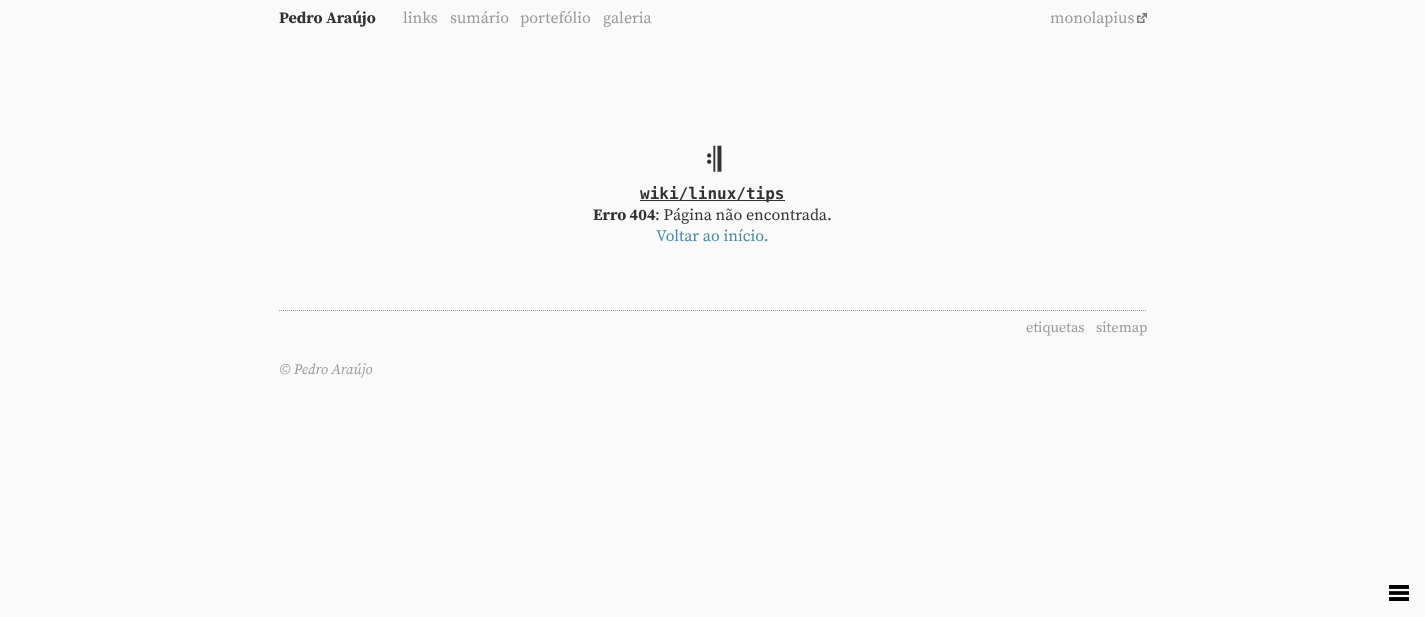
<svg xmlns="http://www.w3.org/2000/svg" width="1425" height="617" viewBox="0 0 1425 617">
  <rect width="100%" height="100%" fill="#fafafa"/>
  <text x="279" y="23" font-family="Source Serif Pro" font-size="16" font-weight="bold" fill="#333333">Pedro Araújo</text>
  <text x="403" y="23" font-family="Source Serif Pro" font-size="16" fill="#999999">links</text>
  <text x="450" y="23" font-family="Source Serif Pro" font-size="16" fill="#999999">sumário</text>
  <text x="520" y="23" font-family="Source Serif Pro" font-size="16" fill="#999999">portefólio</text>
  <text x="603" y="23" font-family="Source Serif Pro" font-size="16" fill="#999999">galeria</text>
  <text x="1050" y="23" font-family="Source Serif Pro" font-size="16" fill="#999999">monolapius</text>
  <image x="1137" y="13" width="10" height="10" href="img1.png"/>
  <image x="1389" y="585" width="20" height="16" href="img2.png"/>
  <text x="705" y="171" font-family="FreeSerif" font-size="32" font-weight="bold" fill="#333333">𝄇</text>
  <rect x="640" y="200" width="145" height="1" fill="#333333"/>
  <text x="640" y="199" font-family="DejaVu Sans Mono" font-size="16" font-weight="bold" fill="#333333">wiki/linux/tips</text>
  <text x="593" y="220" font-family="Source Serif Pro" font-size="16" font-weight="bold" fill="#333333">Erro 404</text>
  <text x="655" y="220" font-family="Source Serif Pro" font-size="16" fill="#333333">: Página não encontrada.</text>
  <text x="656" y="241" font-family="Source Serif Pro" font-size="16" fill="#468aa7">Voltar ao início.</text>
  <path d="M279 310.5H1147" fill="none" stroke="#999999" stroke-dasharray="1 1"/>
  <text x="1026" y="332" font-family="Source Serif Pro" font-size="14.5" fill="#999999">etiquetas</text>
  <text x="1096" y="332" font-family="Source Serif Pro" font-size="14.5" fill="#999999">sitemap</text>
  <text x="279" y="374" font-family="Source Serif Pro" font-size="14.5" font-style="italic" fill="#999999">© Pedro Araújo</text>
</svg>
